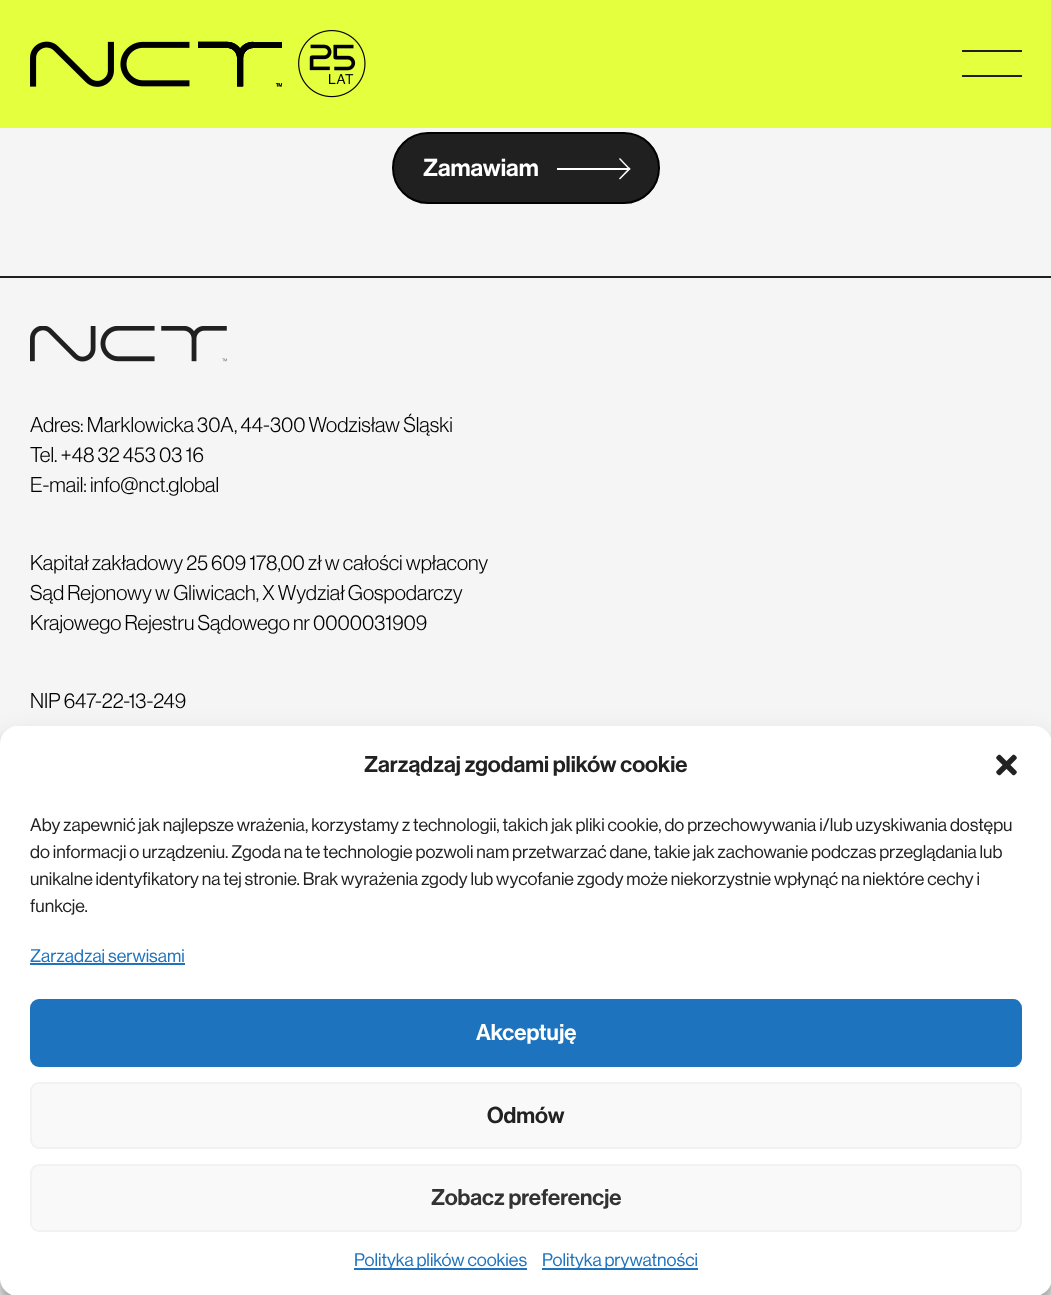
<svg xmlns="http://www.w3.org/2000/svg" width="1051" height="1295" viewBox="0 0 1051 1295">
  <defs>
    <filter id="blur1" x="-50%" y="-200%" width="200%" height="500%"><feGaussianBlur stdDeviation="4.5"/></filter>
    <filter id="blur2" x="-50%" y="-200%" width="200%" height="500%"><feGaussianBlur stdDeviation="15"/></filter>
  </defs>
  <rect width="100%" height="100%" fill="#f5f5f5"/>
  <rect x="0" y="0" width="1051" height="128" fill="#e4ff3e"/>
  <image x="30" y="30" width="336" height="68" href="img1.png"/>
  <rect x="962" y="50" width="60" height="2" fill="#202020"/>
  <rect x="962" y="75" width="60" height="2" fill="#202020"/>
  <rect x="393" y="133" width="266" height="70" rx="35" fill="#202020" stroke="#000000" stroke-width="2"/>
  <text x="423" y="176" font-family="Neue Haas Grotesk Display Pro" font-size="24" font-weight="500" fill="#ffffff">Zamawiam</text>
  <rect x="557" y="168" width="72" height="2" fill="#ffffff"/>
  <path d="M620 158L630.5 169L629.5 170L619 159Z" fill="#ffffff"/>
  <path d="M629.5 167.5L630.5 169L620 179.5L619 178.5Z" fill="#ffffff"/>
  <rect x="0" y="276" width="1051" height="2" fill="#202020"/>
  <image x="30" y="326" width="197" height="36" href="img2.png"/>
  <text x="30" y="432" font-family="Neue Haas Grotesk Display Pro" font-size="21" fill="#000000">Adres: Marklowicka 30A, 44-300 Wodzisław Śląski</text>
  <text x="30" y="462" font-family="Neue Haas Grotesk Display Pro" font-size="21" fill="#000000">Tel. +48 32 453 03 16</text>
  <text x="30" y="492" font-family="Neue Haas Grotesk Display Pro" font-size="21" fill="#000000">E-mail: info@nct.global</text>
  <text x="30" y="570" font-family="Neue Haas Grotesk Display Pro" font-size="21" fill="#000000">Kapitał zakładowy 25 609 178,00 zł w całości wpłacony</text>
  <text x="30" y="600" font-family="Neue Haas Grotesk Display Pro" font-size="21" fill="#000000">Sąd Rejonowy w Gliwicach, X Wydział Gospodarczy</text>
  <text x="30" y="630" font-family="Neue Haas Grotesk Display Pro" font-size="21" fill="#000000">Krajowego Rejestru Sądowego nr 0000031909</text>
  <text x="30" y="708" font-family="Neue Haas Grotesk Display Pro" font-size="21" fill="#000000">NIP 647-22-13-249</text>
  <rect x="0" y="735" width="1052" height="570" rx="18" fill="#000000" fill-opacity="0.23" filter="url(#blur1)"/>
  <rect x="0" y="741" width="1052" height="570" rx="18" fill="#000000" fill-opacity="0.19" filter="url(#blur2)"/>
  <rect x="0" y="726" width="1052" height="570" rx="18" fill="#ffffff"/>
  <text x="364" y="772" font-family="Neue Haas Grotesk Display Pro" font-size="22.5" font-weight="500" fill="#222222">Zarządzaj zgodami plików cookie</text>
  <image x="996" y="754" width="21" height="22" href="img3.png"/>
  <text x="30" y="831" font-family="'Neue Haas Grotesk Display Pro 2'" font-size="18" fill="#222222">Aby zapewnić jak najlepsze wrażenia, korzystamy z technologii, takich jak pliki cookie, do przechowywania i/lub uzyskiwania dostępu</text>
  <text x="30" y="858" font-family="'Neue Haas Grotesk Display Pro 2'" font-size="18" fill="#222222">do informacji o urządzeniu. Zgoda na te technologie pozwoli nam przetwarzać dane, takie jak zachowanie podczas przeglądania lub</text>
  <text x="30" y="885" font-family="'Neue Haas Grotesk Display Pro 2'" font-size="18" fill="#222222">unikalne identyfikatory na tej stronie. Brak wyrażenia zgody lub wycofanie zgody może niekorzystnie wpłynąć na niektóre cechy i</text>
  <text x="30" y="912" font-family="'Neue Haas Grotesk Display Pro 2'" font-size="18" fill="#222222">funkcje.</text>
  <rect x="30" y="963" width="155" height="2" fill="#1e73be"/>
  <text x="30" y="962" font-family="'Neue Haas Grotesk Display Pro 2'" font-size="18" fill="#1e73be">Zarządzaj serwisami</text>
  <rect x="31" y="1000" width="990" height="66" rx="8" fill="#1e73be" stroke="#1e73be" stroke-width="2"/>
  <text x="476" y="1040" font-family="Neue Haas Grotesk Display Pro" font-size="22.5" font-weight="500" fill="#ffffff">Akceptuję</text>
  <rect x="31" y="1083" width="990" height="65" rx="8" fill="#f9f9f9" stroke="#f2f2f2" stroke-width="2"/>
  <text x="487" y="1123" font-family="Neue Haas Grotesk Display Pro" font-size="22.5" font-weight="500" fill="#222222">Odmów</text>
  <rect x="31" y="1165" width="990" height="66" rx="8" fill="#f9f9f9" stroke="#f2f2f2" stroke-width="2"/>
  <text x="431" y="1205" font-family="Neue Haas Grotesk Display Pro" font-size="22.5" font-weight="500" fill="#333333">Zobacz preferencje</text>
  <rect x="354" y="1268" width="173" height="2" fill="#1e73be"/>
  <text x="354" y="1266" font-family="'Neue Haas Grotesk Display Pro 2'" font-size="18" fill="#1e73be">Polityka plików cookies</text>
  <rect x="542" y="1268" width="156" height="2" fill="#1e73be"/>
  <text x="542" y="1266" font-family="'Neue Haas Grotesk Display Pro 2'" font-size="18" fill="#1e73be">Polityka prywatności</text>
</svg>
